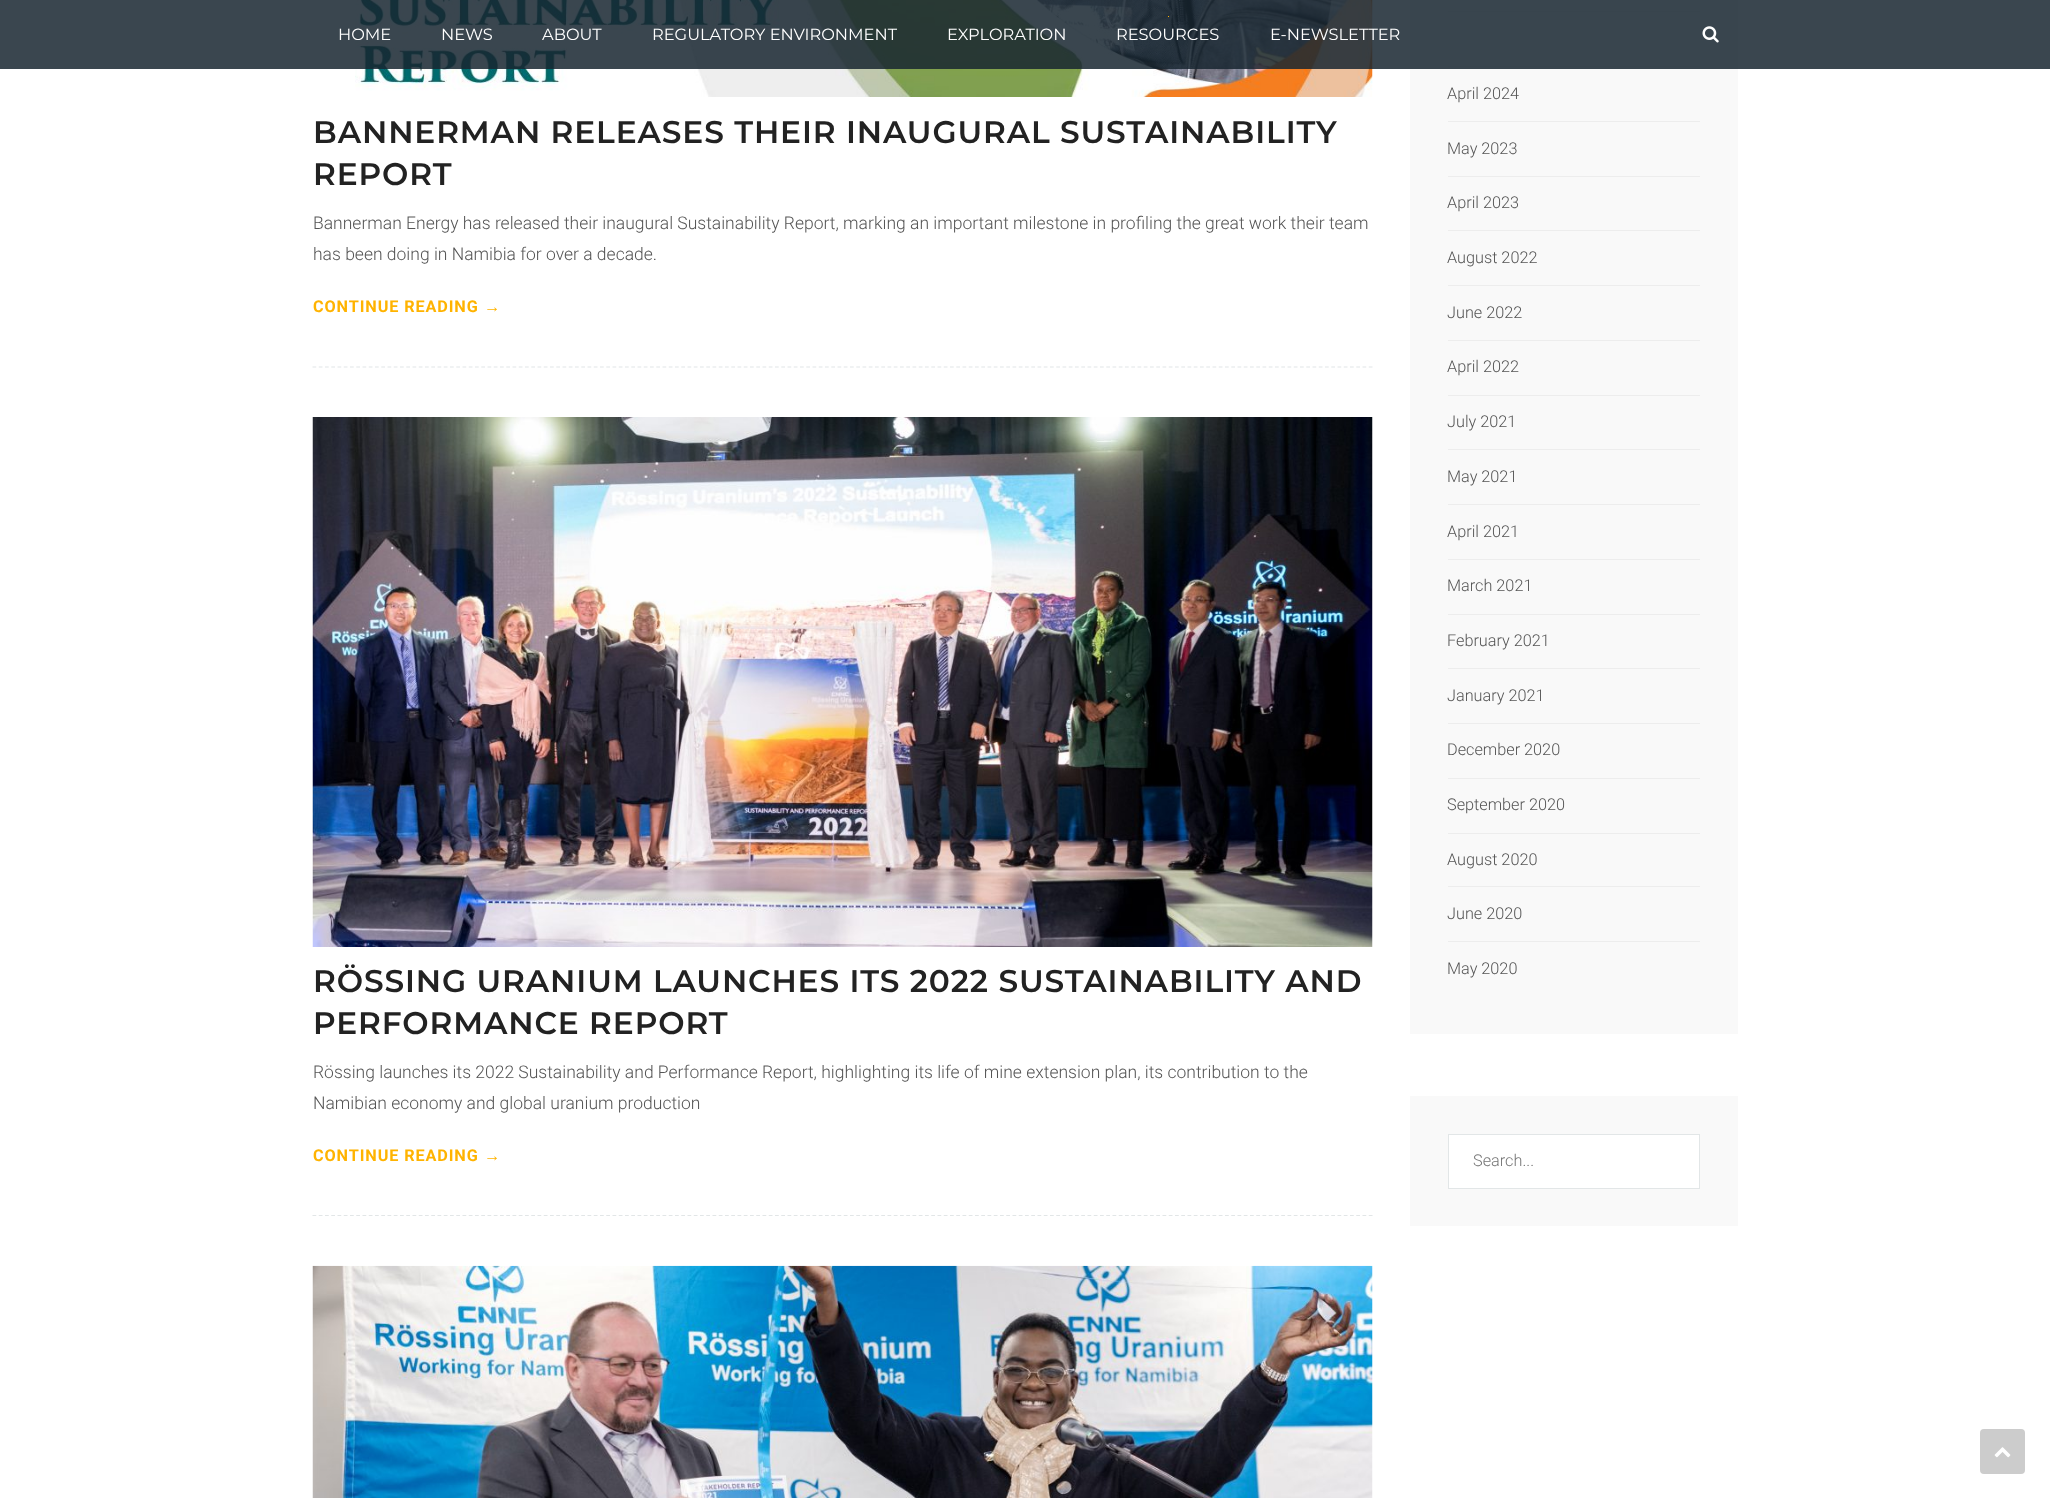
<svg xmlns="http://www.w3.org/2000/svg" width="2050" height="1498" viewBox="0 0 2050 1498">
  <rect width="100%" height="100%" fill="#ffffff"/>
  <image x="355" y="0" width="1018" height="97" href="img2.png"/>
  <rect x="1410" y="0" width="328" height="1034" fill="#f9f9f9"/>
  <rect x="1448" y="11" width="252" height="1" fill="#ededed"/>
  <rect x="1448" y="66" width="252" height="1" fill="#ededed"/>
  <rect x="0" y="0" width="2050" height="69" fill="#182630" fill-opacity="0.85"/>
  <text x="338" y="40" font-family="Montserrat" font-size="16.25" fill="#ffffff">HOME</text>
  <text x="441" y="40" font-family="Montserrat" font-size="16.25" fill="#ffffff">NEWS</text>
  <text x="542" y="40" font-family="Montserrat" font-size="16.25" fill="#ffffff">ABOUT</text>
  <text x="652" y="40" font-family="Montserrat" font-size="16.25" fill="#ffffff">REGULATORY ENVIRONMENT</text>
  <text x="947" y="40" font-family="Montserrat" font-size="16.25" fill="#ffffff">EXPLORATION</text>
  <rect x="1168" y="16" width="1" height="1" fill="#ffb300"/>
  <text x="1116" y="40" font-family="Montserrat" font-size="16.25" fill="#ffffff">RESOURCES</text>
  <text x="1270" y="40" font-family="Montserrat" font-size="16.25" fill="#ffffff">E-NEWSLETTER</text>
  <image x="1702" y="26" width="17" height="17" href="img1.png"/>
  <path d="M312.5 367H1372.5" fill="none" stroke="#e2e6e7" stroke-width="1.2" stroke-dasharray="3.75 2.5"/>
  <text x="313" y="143" font-family="Montserrat" font-size="31.25" font-weight="600" letter-spacing="0.88" fill="#222222">BANNERMAN RELEASES THEIR INAUGURAL SUSTAINABILITY</text>
  <text x="313" y="185" font-family="Montserrat" font-size="31.25" font-weight="600" letter-spacing="0.88" fill="#222222">REPORT</text>
  <text x="313" y="229" font-family="Roboto" font-size="17.5" font-weight="300" fill="#555555">Bannerman Energy has released their inaugural Sustainability Report, marking an important milestone in profiling the great work their team</text>
  <text x="313" y="260" font-family="Roboto" font-size="17.5" font-weight="300" fill="#555555">has been doing in Namibia for over a decade.</text>
  <text x="313" y="312" font-family="Roboto" font-size="16.25" font-weight="bold" letter-spacing="0.88" fill="#ffb300">CONTINUE READING</text>
  <text x="484" y="312" font-family="Liberation Serif" font-size="16.25" font-weight="bold" letter-spacing="0.88" fill="#ffb300">→</text>
  <path d="M312.5 1215.5H1372.5" fill="none" stroke="#e2e6e7" stroke-width="1.2" stroke-dasharray="3.75 2.5"/>
  <image x="312" y="417" width="1061" height="530" href="img3.png"/>
  <text x="313" y="992" font-family="Montserrat" font-size="31.25" font-weight="600" letter-spacing="0.88" fill="#222222">RÖSSING URANIUM LAUNCHES ITS 2022 SUSTAINABILITY AND</text>
  <text x="313" y="1034" font-family="Montserrat" font-size="31.25" font-weight="600" letter-spacing="0.88" fill="#222222">PERFORMANCE REPORT</text>
  <text x="313" y="1078" font-family="Roboto" font-size="17.5" font-weight="300" fill="#555555">Rössing launches its 2022 Sustainability and Performance Report, highlighting its life of mine extension plan, its contribution to the</text>
  <text x="313" y="1109" font-family="Roboto" font-size="17.5" font-weight="300" fill="#555555">Namibian economy and global uranium production</text>
  <text x="313" y="1161" font-family="Roboto" font-size="16.25" font-weight="bold" letter-spacing="0.88" fill="#ffb300">CONTINUE READING</text>
  <text x="484" y="1161" font-family="Liberation Serif" font-size="16.25" font-weight="bold" letter-spacing="0.88" fill="#ffb300">→</text>
  <image x="312" y="1265" width="1061" height="233" href="img4.png"/>
  <rect x="1448" y="121" width="252" height="1" fill="#ededed"/>
  <text x="1447" y="99" font-family="Roboto" font-size="16.25" font-weight="300" fill="#555555">April 2024</text>
  <rect x="1448" y="176" width="252" height="1" fill="#ededed"/>
  <text x="1447" y="154" font-family="Roboto" font-size="16.25" font-weight="300" fill="#555555">May 2023</text>
  <rect x="1448" y="230" width="252" height="1" fill="#ededed"/>
  <text x="1447" y="208" font-family="Roboto" font-size="16.25" font-weight="300" fill="#555555">April 2023</text>
  <rect x="1448" y="285" width="252" height="1" fill="#ededed"/>
  <text x="1447" y="263" font-family="Roboto" font-size="16.25" font-weight="300" fill="#555555">August 2022</text>
  <rect x="1448" y="340" width="252" height="1" fill="#ededed"/>
  <text x="1447" y="318" font-family="Roboto" font-size="16.25" font-weight="300" fill="#555555">June 2022</text>
  <rect x="1448" y="395" width="252" height="1" fill="#ededed"/>
  <text x="1447" y="372" font-family="Roboto" font-size="16.25" font-weight="300" fill="#555555">April 2022</text>
  <rect x="1448" y="449" width="252" height="1" fill="#ededed"/>
  <text x="1447" y="427" font-family="Roboto" font-size="16.25" font-weight="300" fill="#555555">July 2021</text>
  <rect x="1448" y="504" width="252" height="1" fill="#ededed"/>
  <text x="1447" y="482" font-family="Roboto" font-size="16.25" font-weight="300" fill="#555555">May 2021</text>
  <rect x="1448" y="559" width="252" height="1" fill="#ededed"/>
  <text x="1447" y="537" font-family="Roboto" font-size="16.25" font-weight="300" fill="#555555">April 2021</text>
  <rect x="1448" y="614" width="252" height="1" fill="#ededed"/>
  <text x="1447" y="591" font-family="Roboto" font-size="16.25" font-weight="300" fill="#555555">March 2021</text>
  <rect x="1448" y="668" width="252" height="1" fill="#ededed"/>
  <text x="1447" y="646" font-family="Roboto" font-size="16.25" font-weight="300" fill="#555555">February 2021</text>
  <rect x="1448" y="723" width="252" height="1" fill="#ededed"/>
  <text x="1447" y="701" font-family="Roboto" font-size="16.25" font-weight="300" fill="#555555">January 2021</text>
  <rect x="1448" y="778" width="252" height="1" fill="#ededed"/>
  <text x="1447" y="755" font-family="Roboto" font-size="16.25" font-weight="300" fill="#555555">December 2020</text>
  <rect x="1448" y="833" width="252" height="1" fill="#ededed"/>
  <text x="1447" y="810" font-family="Roboto" font-size="16.25" font-weight="300" fill="#555555">September 2020</text>
  <rect x="1448" y="886" width="252" height="1" fill="#ededed"/>
  <text x="1447" y="865" font-family="Roboto" font-size="16.25" font-weight="300" fill="#555555">August 2020</text>
  <rect x="1448" y="941" width="252" height="1" fill="#ededed"/>
  <text x="1447" y="919" font-family="Roboto" font-size="16.25" font-weight="300" fill="#555555">June 2020</text>
  <text x="1447" y="974" font-family="Roboto" font-size="16.25" font-weight="300" fill="#555555">May 2020</text>
  <rect x="1410" y="1096" width="328" height="130" fill="#f9f9f9"/>
  <rect x="1448.5" y="1134.5" width="251" height="54" fill="#ffffff" stroke="#e2e6e7"/>
  <text x="1473" y="1166" font-family="Roboto" font-size="16.25" font-weight="300" fill="#757575">Search...</text>
  <rect x="1980" y="1429" width="45" height="45" rx="4" fill="#cccccc"/>
  <image x="1994" y="1447" width="17" height="11" href="img5.png"/>
</svg>
